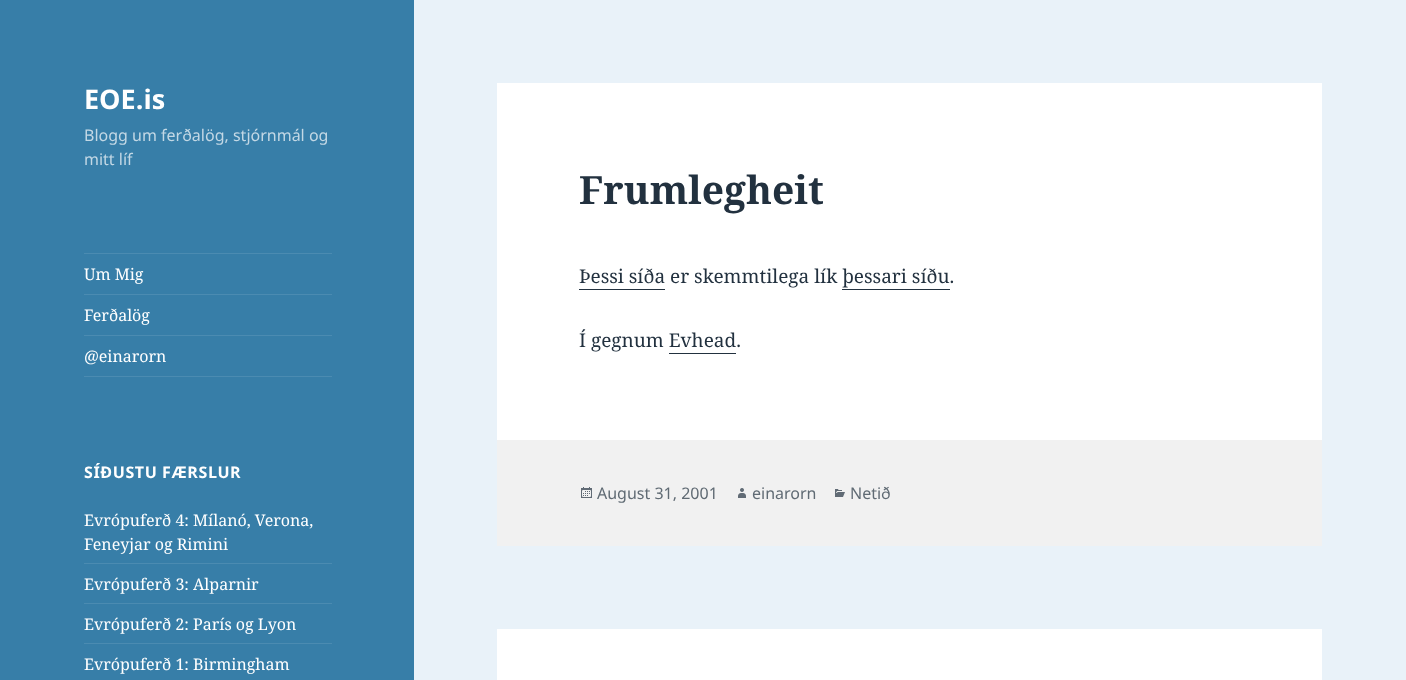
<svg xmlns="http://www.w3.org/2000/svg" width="1406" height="680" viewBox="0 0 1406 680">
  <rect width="100%" height="100%" fill="#e9f2f9"/>
  <rect x="0" y="0" width="414" height="680" fill="#377ea8"/>
  <text x="84" y="109" font-family="Noto Sans" font-size="27" font-weight="bold" fill="#ffffff">EOE.is</text>
  <text x="84" y="141" font-family="Noto Sans" font-size="16" fill="#c3d8e5">Blogg um ferðalög, stjórnmál og</text>
  <text x="84" y="165" font-family="Noto Sans" font-size="16" fill="#c3d8e5">mitt líf</text>
  <rect x="84" y="253" width="248" height="1" fill="#4b8bb1"/>
  <rect x="84" y="376" width="248" height="1" fill="#4b8bb1"/>
  <text x="84" y="280" font-family="Noto Serif" font-size="16" fill="#ffffff">Um Mig</text>
  <rect x="84" y="294" width="248" height="1" fill="#4b8bb1"/>
  <text x="84" y="321" font-family="Noto Serif" font-size="16" fill="#ffffff">Ferðalög</text>
  <rect x="84" y="335" width="248" height="1" fill="#4b8bb1"/>
  <text x="84" y="362" font-family="Noto Serif" font-size="16" fill="#ffffff">@einarorn</text>
  <text x="84" y="478" font-family="Noto Sans" font-size="16" font-weight="bold" letter-spacing="0.6" fill="#ffffff">SÍÐUSTU FÆRSLUR</text>
  <text x="84" y="526" font-family="Noto Serif" font-size="16" fill="#ffffff">Evrópuferð 4: Mílanó, Verona,</text>
  <text x="84" y="550" font-family="Noto Serif" font-size="16" fill="#ffffff">Feneyjar og Rimini</text>
  <rect x="84" y="563" width="248" height="1" fill="#4b8bb1"/>
  <text x="84" y="590" font-family="Noto Serif" font-size="16" fill="#ffffff">Evrópuferð 3: Alparnir</text>
  <rect x="84" y="603" width="248" height="1" fill="#4b8bb1"/>
  <text x="84" y="630" font-family="Noto Serif" font-size="16" fill="#ffffff">Evrópuferð 2: París og Lyon</text>
  <rect x="84" y="643" width="248" height="1" fill="#4b8bb1"/>
  <text x="84" y="670" font-family="Noto Serif" font-size="16" fill="#ffffff">Evrópuferð 1: Birmingham</text>
  <rect x="497" y="83" width="825" height="357" fill="#ffffff"/>
  <text x="579" y="204" font-family="Noto Serif" font-size="39" font-weight="bold" fill="#22313f">Frumlegheit</text>
  <text x="579" y="283" font-family="Noto Serif" font-size="19" fill="#22313f">Þessi síða er skemmtilega lík þessari síðu.</text>
  <rect x="579" y="289" width="86" height="1" fill="#22313f"/>
  <rect x="842" y="289" width="108" height="1" fill="#22313f"/>
  <text x="579" y="347" font-family="Noto Serif" font-size="19" fill="#22313f">Í gegnum Evhead.</text>
  <rect x="669" y="353" width="67" height="1" fill="#22313f"/>
  <rect x="497" y="440" width="825" height="106" fill="#f1f1f1"/>
  <image x="581" y="487" width="11" height="11" href="img1.png"/>
  <text x="597" y="499" font-family="Noto Sans" font-size="16" fill="#606b74">August 31, 2001</text>
  <image x="738" y="488" width="8" height="10" href="img2.png"/>
  <text x="752" y="499" font-family="Noto Sans" font-size="16" fill="#606b74">einarorn</text>
  <image x="835" y="489" width="10" height="8" href="img3.png"/>
  <text x="850" y="499" font-family="Noto Sans" font-size="16" fill="#606b74">Netið</text>
  <rect x="497" y="629" width="825" height="51" fill="#ffffff"/>
</svg>
